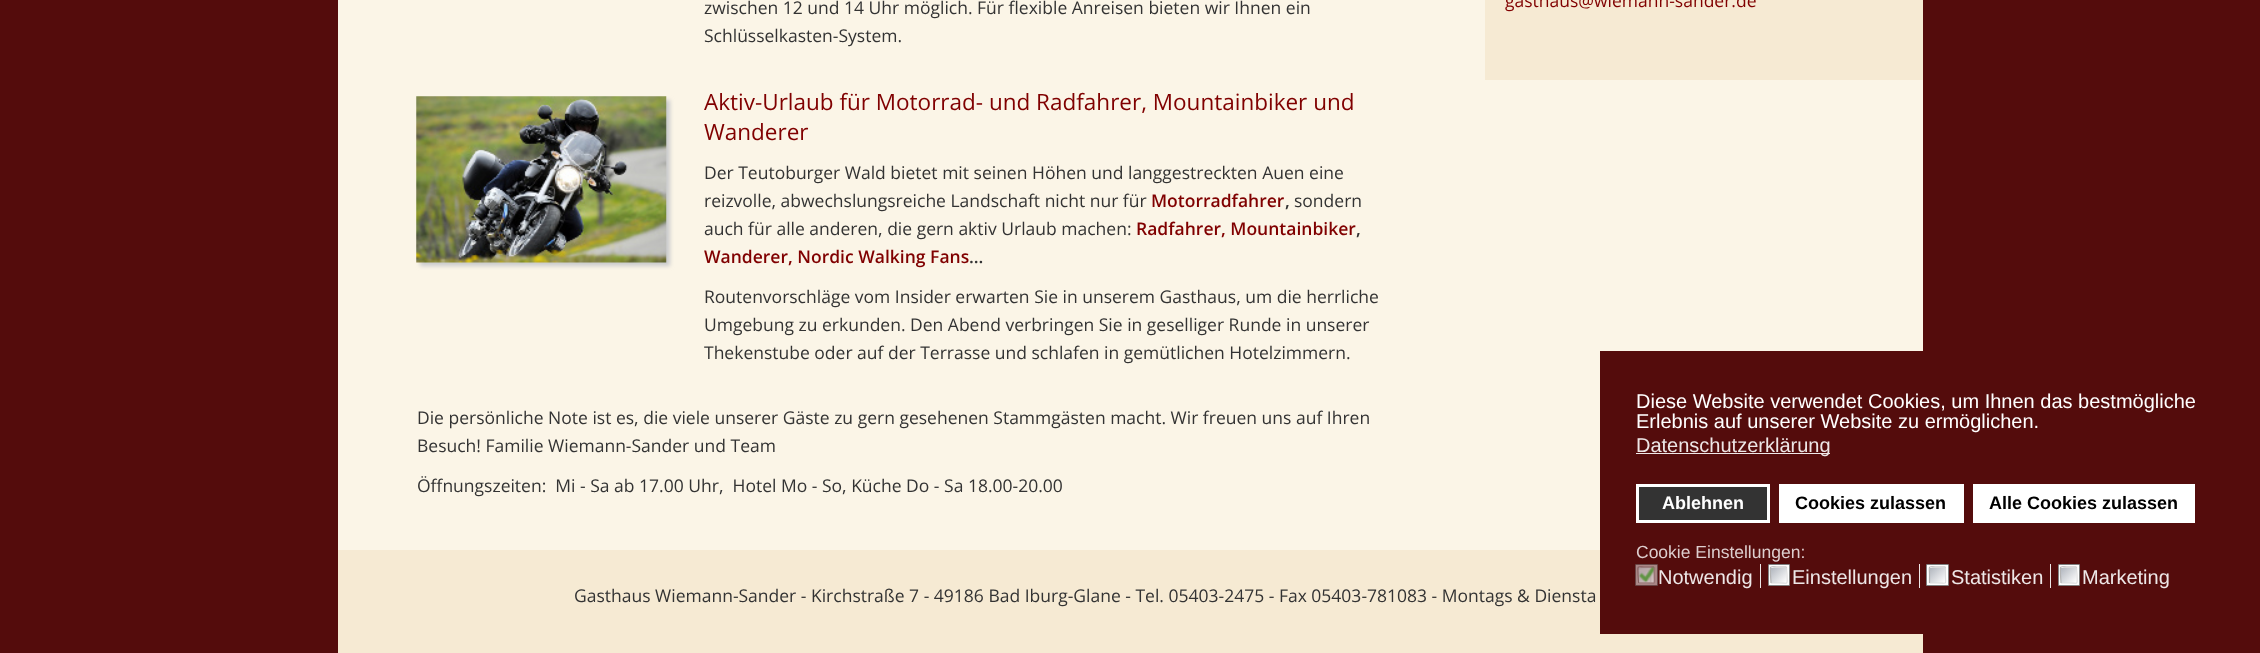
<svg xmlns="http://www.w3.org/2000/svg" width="2260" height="653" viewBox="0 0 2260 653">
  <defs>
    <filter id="blur1" x="-50%" y="-200%" width="200%" height="500%"><feGaussianBlur stdDeviation="2"/></filter>
    <linearGradient id="g1" gradientUnits="userSpaceOnUse" x1="1771" y1="568" x2="1786" y2="583"><stop offset="0" stop-color="#b1b6be"/><stop offset="1" stop-color="#ffffff"/></linearGradient>
    <linearGradient id="g2" gradientUnits="userSpaceOnUse" x1="1930" y1="568" x2="1945" y2="583"><stop offset="0" stop-color="#b1b6be"/><stop offset="1" stop-color="#ffffff"/></linearGradient>
    <linearGradient id="g3" gradientUnits="userSpaceOnUse" x1="2061" y1="568" x2="2076" y2="583"><stop offset="0" stop-color="#b1b6be"/><stop offset="1" stop-color="#ffffff"/></linearGradient>
  </defs>
  <rect width="100%" height="100%" fill="#540c0c"/>
  <rect x="338" y="0" width="1585" height="550" fill="#fbf5e7"/>
  <text x="704" y="14" font-family="Open Sans" font-size="17.5" fill="#333333">zwischen 12 und 14 Uhr möglich. Für flexible Anreisen bieten wir Ihnen ein</text>
  <text x="704" y="42" font-family="Open Sans" font-size="17.5" fill="#333333">Schlüsselkasten-System.</text>
  <rect x="420" y="100" width="250" height="166" fill="#c9cacc" filter="url(#blur1)"/>
  <image x="416" y="96" width="251" height="167" href="img1.png"/>
  <text x="704" y="110" font-family="Open Sans" font-size="22.5" fill="#800000">Aktiv-Urlaub für Motorrad- und Radfahrer, Mountainbiker und</text>
  <text x="704" y="140" font-family="Open Sans" font-size="22.5" fill="#800000">Wanderer</text>
  <text x="704" y="179" font-family="Open Sans" font-size="17.5" fill="#333333">Der Teutoburger Wald bietet mit seinen Höhen und langgestreckten Auen eine</text>
  <text x="704" y="207" font-family="Open Sans" font-size="17.5" fill="#333333">reizvolle, abwechslungsreiche Landschaft nicht nur für</text>
  <text x="1151" y="207" font-family="Open Sans" font-size="17.5" font-weight="600" fill="#800000">Motorradfahrer</text>
  <text x="1285" y="207" font-family="Open Sans" font-size="17.5" font-weight="600" fill="#333333">,</text>
  <text x="1294" y="207" font-family="Open Sans" font-size="17.5" fill="#333333">sondern</text>
  <text x="704" y="235" font-family="Open Sans" font-size="17.5" fill="#333333">auch für alle anderen, die gern aktiv Urlaub machen:</text>
  <text x="1136" y="235" font-family="Open Sans" font-size="17.5" font-weight="600" fill="#800000">Radfahrer, Mountainbiker</text>
  <text x="1356" y="235" font-family="Open Sans" font-size="17.5" font-weight="600" fill="#333333">,</text>
  <text x="704" y="263" font-family="Open Sans" font-size="17.5" font-weight="600" fill="#800000">Wanderer, Nordic Walking Fans</text>
  <text x="969" y="263" font-family="Open Sans" font-size="17.5" font-weight="600" fill="#333333">...</text>
  <text x="704" y="303" font-family="Open Sans" font-size="17.5" fill="#333333">Routenvorschläge vom Insider erwarten Sie in unserem Gasthaus, um die herrliche</text>
  <text x="704" y="331" font-family="Open Sans" font-size="17.5" fill="#333333">Umgebung zu erkunden. Den Abend verbringen Sie in geselliger Runde in unserer</text>
  <text x="704" y="359" font-family="Open Sans" font-size="17.5" fill="#333333">Thekenstube oder auf der Terrasse und schlafen in gemütlichen Hotelzimmern.</text>
  <text x="417" y="424" font-family="Open Sans" font-size="17.5" fill="#333333">Die persönliche Note ist es, die viele unserer Gäste zu gern gesehenen Stammgästen macht. Wir freuen uns auf Ihren</text>
  <text x="417" y="452" font-family="Open Sans" font-size="17.5" fill="#333333">Besuch! Familie Wiemann-Sander und Team</text>
  <text x="417" y="492" font-family="Open Sans" font-size="17.5" fill="#333333" xml:space="preserve">Öffnungszeiten:  Mi - Sa ab 17.00 Uhr,  Hotel Mo - So, Küche Do - Sa 18.00-20.00</text>
  <rect x="1485" y="0" width="438" height="80" fill="#f6ead3"/>
  <text x="1505" y="7" font-family="Open Sans" font-size="17.5" fill="#800000">gasthaus@wiemann-sander.de</text>
  <rect x="338" y="550" width="1585" height="103" fill="#f6ead3"/>
  <text x="574" y="602" font-family="Open Sans" font-size="17.5" fill="#333333">Gasthaus Wiemann-Sander - Kirchstraße 7 - 49186 Bad Iburg-Glane - Tel. 05403-2475 - Fax 05403-781083 - Montags &amp; Diensta</text>
  <rect x="1600" y="351" width="323" height="283" fill="#540c0c"/>
  <text x="1636" y="408" font-family="Liberation Sans" font-size="20" fill="#ffffff">Diese Website verwendet Cookies, um Ihnen das bestmögliche</text>
  <text x="1636" y="428" font-family="Liberation Sans" font-size="20" fill="#ffffff">Erlebnis auf unserer Website zu ermöglichen.</text>
  <rect x="1636" y="453" width="194" height="1" fill="#eee7e7"/>
  <text x="1636" y="452" font-family="Liberation Sans" font-size="20" fill="#eee7e7">Datenschutzerklärung</text>
  <rect x="1637.5" y="485.5" width="131" height="36" fill="#333333" stroke="#ffffff" stroke-width="3"/>
  <text x="1662" y="509" font-family="Liberation Sans" font-size="18" font-weight="bold" fill="#ffffff">Ablehnen</text>
  <rect x="1779" y="484" width="185" height="39" fill="#ffffff"/>
  <text x="1795" y="509" font-family="Liberation Sans" font-size="18" font-weight="bold" fill="#000000">Cookies zulassen</text>
  <rect x="1973" y="484" width="222" height="39" fill="#ffffff"/>
  <text x="1989" y="509" font-family="Liberation Sans" font-size="18" font-weight="bold" fill="#000000">Alle Cookies zulassen</text>
  <text x="1636" y="558" font-family="Liberation Sans" font-size="17.5" fill="#ddcece">Cookie Einstellungen:</text>
  <rect x="1635.5" y="564.5" width="22" height="21" rx="0.5" fill="#aa8686" stroke="#6a4646"/>
  <image x="1637" y="566" width="19" height="18" href="img2.png"/>
  <path d="M1654 567L1654.5 575C1654.5 585.5 1656.5 583 1646 583H1638.5" fill="none" stroke="#987575" stroke-width="1.2"/>
  <path d="M1638.5 583L1638 575C1638 564.5 1636 567 1646 567H1654" fill="none" stroke="#846060" stroke-width="1.2"/>
  <rect x="1760" y="564" width="1" height="24" fill="#eee7e7"/>
  <text x="1658" y="584" font-family="Liberation Sans" font-size="20" fill="#eee7e7">Notwendig</text>
  <rect x="1768.5" y="564.5" width="21" height="21" rx="0.5" fill="#ffffff" stroke="#808080"/>
  <rect x="1771" y="568" width="15" height="15" fill="url(#g1)"/>
  <path d="M1786.5 567L1787 575C1787 585.5 1789 583 1779 583H1771" fill="none" stroke="#dcddde" stroke-width="1.2"/>
  <path d="M1771 583L1770.5 575C1770.5 564.5 1768.5 567 1779 567H1786.5" fill="none" stroke="#b3b3b3" stroke-width="1.2"/>
  <rect x="1919" y="564" width="1" height="24" fill="#eee7e7"/>
  <text x="1792" y="584" font-family="Liberation Sans" font-size="20" fill="#eee7e7">Einstellungen</text>
  <rect x="1926.5" y="564.5" width="22" height="21" rx="0.5" fill="#ffffff" stroke="#808080"/>
  <rect x="1930" y="568" width="15" height="15" fill="url(#g2)"/>
  <path d="M1945.5 567V575C1945.5 585.5 1948 583 1937.5 583H1929.5" fill="none" stroke="#dcddde" stroke-width="1.2"/>
  <path d="M1929.5 583V575C1929.5 564.5 1927 567 1937.5 567H1945.5" fill="none" stroke="#b3b3b3" stroke-width="1.2"/>
  <rect x="2050" y="564" width="1" height="24" fill="#eee7e7"/>
  <text x="1951" y="584" font-family="Liberation Sans" font-size="20" fill="#eee7e7">Statistiken</text>
  <rect x="2058.5" y="564.5" width="21" height="21" rx="0.5" fill="#ffffff" stroke="#808080"/>
  <rect x="2061" y="568" width="15" height="15" fill="url(#g3)"/>
  <path d="M2076.5 567L2077 575C2077 585.5 2079 583 2069 583H2061" fill="none" stroke="#dcddde" stroke-width="1.2"/>
  <path d="M2061 583L2060.5 575C2060.5 564.5 2058.5 567 2069 567H2076.5" fill="none" stroke="#b3b3b3" stroke-width="1.2"/>
  <text x="2082" y="584" font-family="Liberation Sans" font-size="20" fill="#eee7e7">Marketing</text>
</svg>
